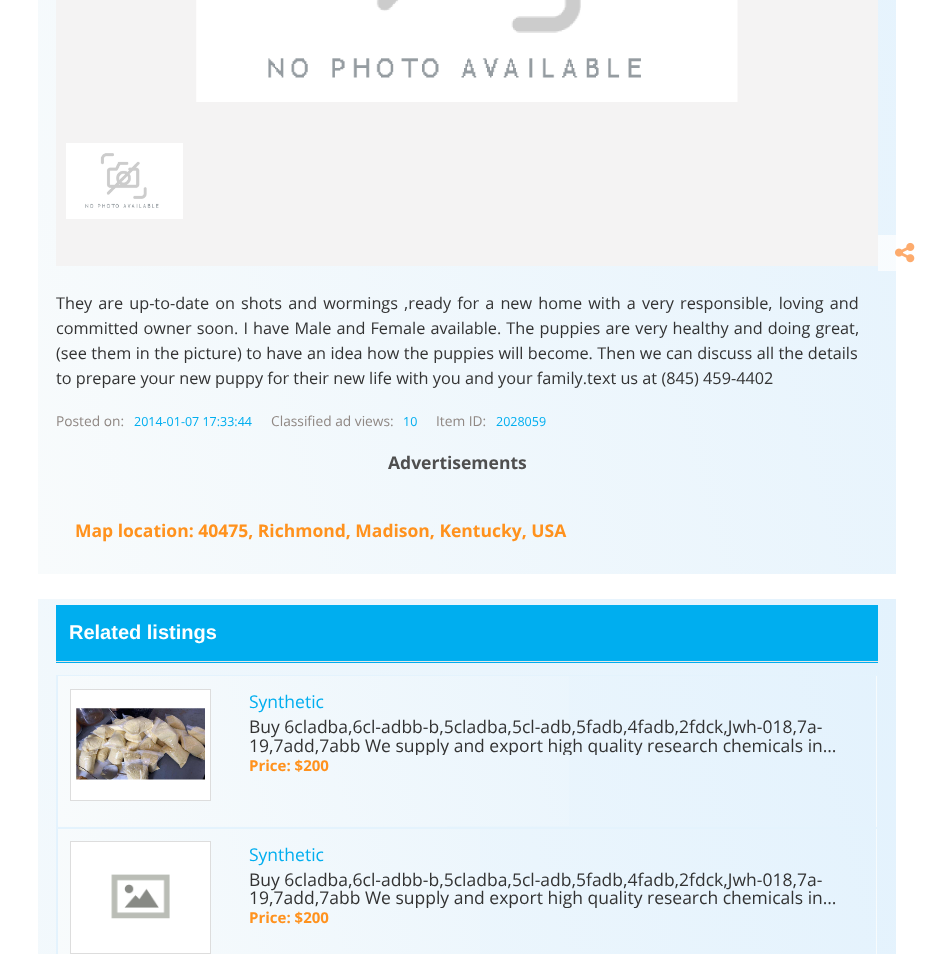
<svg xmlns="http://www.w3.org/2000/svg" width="933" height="954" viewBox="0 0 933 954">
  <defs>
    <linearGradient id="g1" gradientUnits="userSpaceOnUse" x1="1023" y1="-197" x2="-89" y2="101"><stop offset="0" stop-color="#e3f2fd"/><stop offset="1" stop-color="#f8fbfc"/></linearGradient>
    <linearGradient id="g2" gradientUnits="userSpaceOnUse" x1="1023" y1="-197" x2="-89" y2="101"><stop offset="0" stop-color="#f7fbfe"/><stop offset="1" stop-color="#fdfefe"/></linearGradient>
    <linearGradient id="g3" gradientUnits="userSpaceOnUse" x1="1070" y1="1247" x2="-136" y2="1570"><stop offset="0" stop-color="#e3f2fd"/><stop offset="1" stop-color="#f8fbfc"/></linearGradient>
    <linearGradient id="g4" gradientUnits="userSpaceOnUse" x1="49" y1="644" x2="-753" y2="859"><stop offset="0" stop-color="#e3f2fd"/><stop offset="1" stop-color="#f8fbfc"/></linearGradient>
    <linearGradient id="g5" gradientUnits="userSpaceOnUse" x1="868" y1="644" x2="66" y2="859"><stop offset="0" stop-color="#e3f2fd"/><stop offset="1" stop-color="#f8fbfc"/></linearGradient>
    <linearGradient id="g6" gradientUnits="userSpaceOnUse" x1="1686" y1="644" x2="885" y2="859"><stop offset="0" stop-color="#e3f2fd"/><stop offset="1" stop-color="#f8fbfc"/></linearGradient>
    <linearGradient id="g7" gradientUnits="userSpaceOnUse" x1="49" y1="794" x2="-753" y2="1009"><stop offset="0" stop-color="#e3f2fd"/><stop offset="1" stop-color="#f8fbfc"/></linearGradient>
    <linearGradient id="g8" gradientUnits="userSpaceOnUse" x1="868" y1="794" x2="66" y2="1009"><stop offset="0" stop-color="#e3f2fd"/><stop offset="1" stop-color="#f8fbfc"/></linearGradient>
    <linearGradient id="g9" gradientUnits="userSpaceOnUse" x1="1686" y1="794" x2="885" y2="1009"><stop offset="0" stop-color="#e3f2fd"/><stop offset="1" stop-color="#f8fbfc"/></linearGradient>
    <clipPath id="clip1"><rect x="249" y="718" width="615" height="37"/></clipPath>
    <linearGradient id="g10" gradientUnits="userSpaceOnUse" x1="49" y1="796" x2="-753" y2="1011"><stop offset="0" stop-color="#e3f2fd"/><stop offset="1" stop-color="#f8fbfc"/></linearGradient>
    <linearGradient id="g11" gradientUnits="userSpaceOnUse" x1="868" y1="796" x2="66" y2="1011"><stop offset="0" stop-color="#e3f2fd"/><stop offset="1" stop-color="#f8fbfc"/></linearGradient>
    <linearGradient id="g12" gradientUnits="userSpaceOnUse" x1="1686" y1="796" x2="885" y2="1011"><stop offset="0" stop-color="#e3f2fd"/><stop offset="1" stop-color="#f8fbfc"/></linearGradient>
    <clipPath id="clip2"><rect x="249" y="870" width="615" height="38"/></clipPath>
  </defs>
  <rect width="100%" height="100%" fill="#ffffff"/>
  <rect x="38" y="0" width="858" height="574" fill="url(#g1)"/>
  <rect x="878" y="235" width="18" height="36" fill="url(#g2)"/>
  <image x="895" y="242" width="20" height="21" href="img1.png"/>
  <rect x="56" y="0" width="822" height="266" fill="#f4f3f3"/>
  <image x="196" y="0" width="542" height="102" href="img2.png"/>
  <rect x="66" y="143" width="117" height="76" fill="#ffffff"/>
  <image x="85" y="153" width="74" height="55" href="img3.png"/>
  <text x="56" y="309" word-spacing="1.9" font-family="Open Sans" font-size="16.25" fill="#333333">They are up-to-date on shots and wormings ,ready for a new home with a very responsible, loving and</text>
  <text x="56" y="334" word-spacing="0.9" font-family="Open Sans" font-size="16.25" fill="#333333">committed owner soon. I have Male and Female available. The puppies are very healthy and doing great,</text>
  <text x="56" y="359" word-spacing="0.25" font-family="Open Sans" font-size="16.25" fill="#333333">(see them in the picture) to have an idea how the puppies will become. Then we can discuss all the details</text>
  <text x="56" y="384" font-family="Open Sans" font-size="16.25" fill="#333333">to prepare your new puppy for their new life with you and your family.text us at (845) 459-4402</text>
  <text x="56" y="426" font-family="Open Sans" font-size="13.75" fill="#908884">Posted on:</text>
  <text x="134" y="426" font-family="Open Sans" font-size="12.5" fill="#00aeef">2014-01-07 17:33:44</text>
  <text x="271" y="426" font-family="Open Sans" font-size="13.75" fill="#908884">Classified ad views:</text>
  <text x="403" y="426" font-family="Open Sans" font-size="12.5" fill="#00aeef">10</text>
  <text x="436" y="426" font-family="Open Sans" font-size="13.75" fill="#908884">Item ID:</text>
  <text x="496" y="426" font-family="Open Sans" font-size="12.5" fill="#00aeef">2028059</text>
  <text x="388" y="469" font-family="Open Sans" font-size="17.5" font-weight="bold" fill="#4f4f4f">Advertisements</text>
  <text x="75" y="537" font-family="Open Sans" font-size="17.5" font-weight="bold" fill="#ff921e">Map location: 40475, Richmond, Madison, Kentucky, USA</text>
  <rect x="38" y="599" width="858" height="355" fill="url(#g3)"/>
  <rect x="56" y="605" width="822" height="58" fill="#00aeef"/>
  <rect x="56" y="661" width="822" height="1" fill="#e5e5e5"/>
  <text x="69" y="639" font-family="Liberation Sans" font-size="20" font-weight="bold" fill="#ffffff">Related listings</text>
  <rect x="57" y="676" width="1" height="150" fill="url(#g4)"/>
  <rect x="58" y="676" width="511" height="150" fill="url(#g5)"/>
  <rect x="876" y="676" width="1" height="150" fill="url(#g6)"/>
  <rect x="56" y="826" width="2" height="1" fill="url(#g7)"/>
  <rect x="58" y="826" width="389" height="1" fill="url(#g8)"/>
  <rect x="876" y="826" width="2" height="1" fill="url(#g9)"/>
  <rect x="56.5" y="675.5" width="821" height="152" fill="none" stroke="#e4f3fd"/>
  <rect x="70.5" y="689.5" width="140" height="111" fill="#ffffff" stroke="#dddddd"/>
  <image x="76" y="708" width="129" height="72" href="img4.png"/>
  <text x="249" y="708" font-family="Open Sans" font-size="17.5" fill="#00aeef">Synthetic</text>
  <text x="249" y="733" font-family="Open Sans" font-size="17.5" fill="#333333">Buy 6cladba,6cl-adbb-b,5cladba,5cl-adb,5fadb,4fadb,2fdck,Jwh-018,7a-</text>
  <g clip-path="url(#clip1)">
    <text x="249" y="752" font-family="Open Sans" font-size="17.5" fill="#333333">19,7add,7abb We supply and export high quality research chemicals in…</text>
  </g>
  <text x="249" y="771" font-family="Open Sans" font-size="15" font-weight="bold" fill="#ff921e">Price: $200</text>
  <rect x="57" y="829" width="1" height="125" fill="url(#g10)"/>
  <rect x="58" y="829" width="422" height="125" fill="url(#g11)"/>
  <rect x="876" y="829" width="1" height="125" fill="url(#g12)"/>
  <rect x="56.5" y="828.5" width="821" height="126" fill="none" stroke="#e4f3fd"/>
  <rect x="70.5" y="841.5" width="140" height="112" fill="#ffffff" stroke="#dddddd"/>
  <image x="111" y="874" width="59" height="45" href="img5.png"/>
  <text x="249" y="861" font-family="Open Sans" font-size="17.5" fill="#00aeef">Synthetic</text>
  <text x="249" y="886" font-family="Open Sans" font-size="17.5" fill="#333333">Buy 6cladba,6cl-adbb-b,5cladba,5cl-adb,5fadb,4fadb,2fdck,Jwh-018,7a-</text>
  <g clip-path="url(#clip2)">
    <text x="249" y="904" font-family="Open Sans" font-size="17.5" fill="#333333">19,7add,7abb We supply and export high quality research chemicals in…</text>
  </g>
  <text x="249" y="923" font-family="Open Sans" font-size="15" font-weight="bold" fill="#ff921e">Price: $200</text>
</svg>
